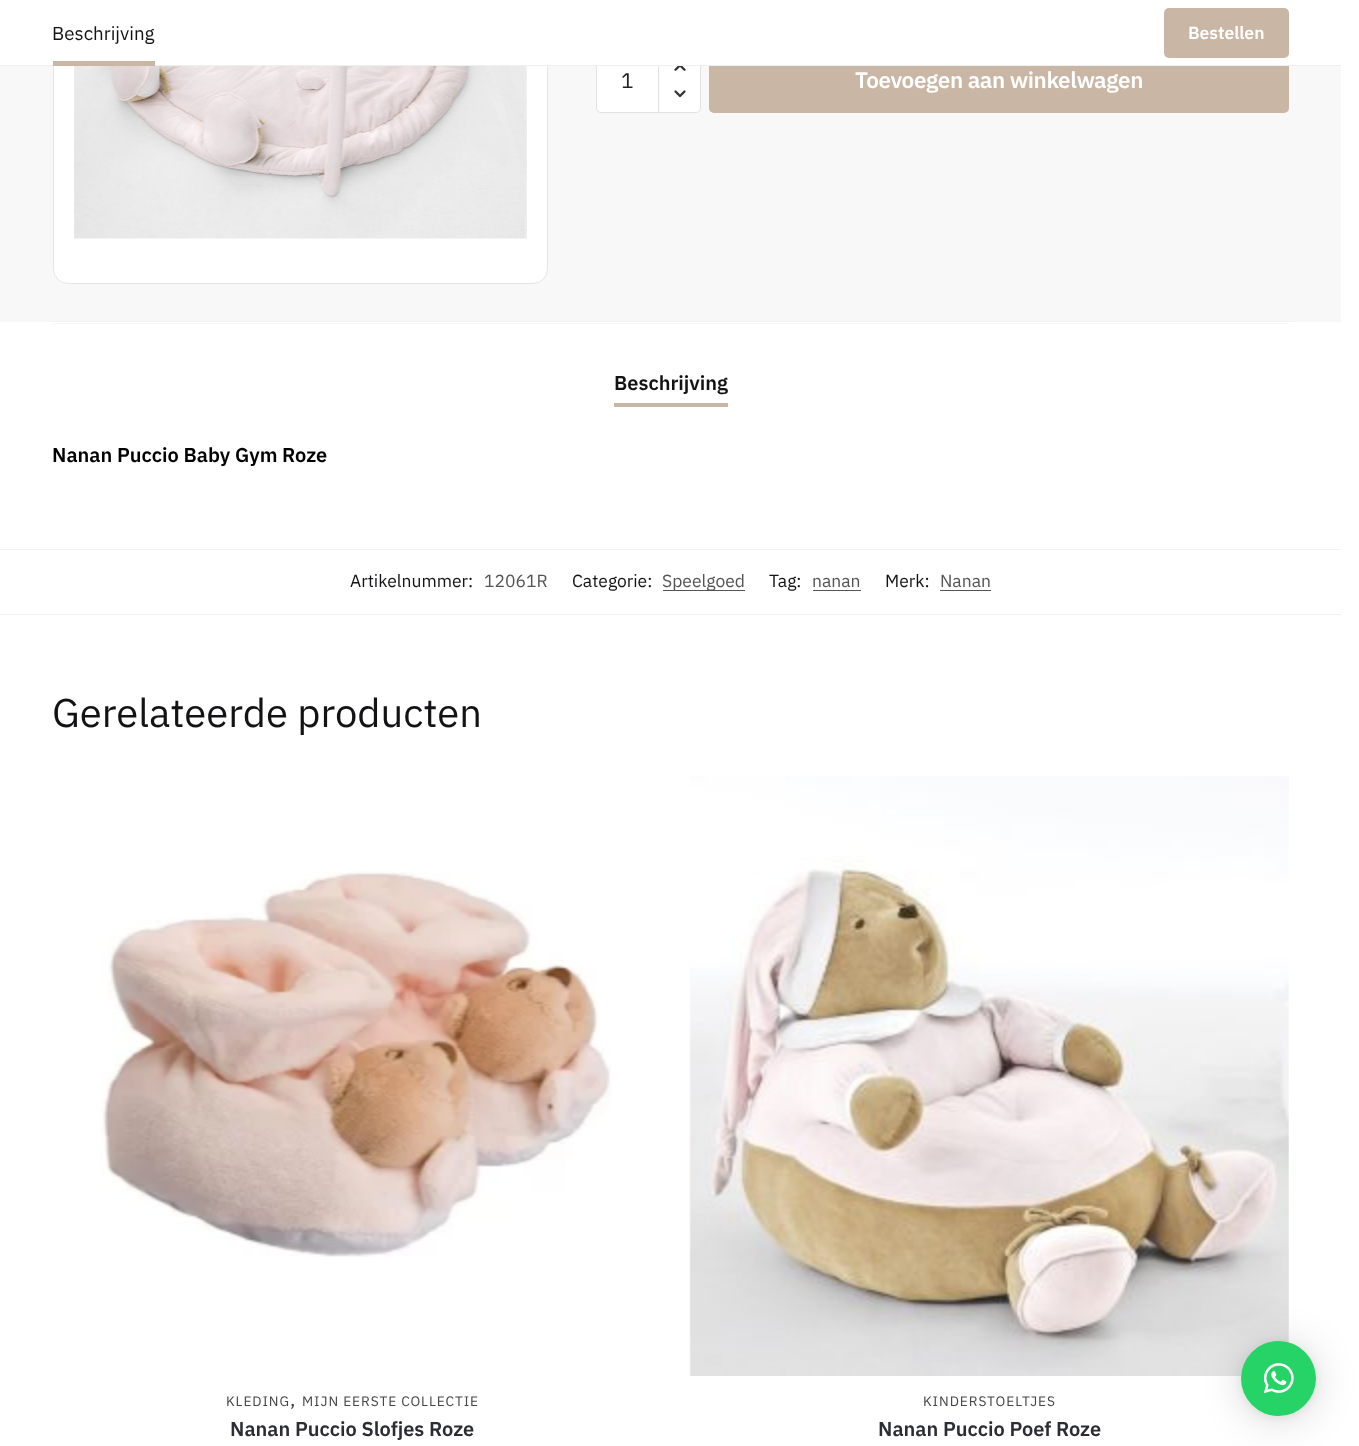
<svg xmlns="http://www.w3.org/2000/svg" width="1359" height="1446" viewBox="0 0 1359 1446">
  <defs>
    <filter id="blur1" x="-50%" y="-200%" width="200%" height="500%"><feGaussianBlur stdDeviation="20"/></filter>
    <filter id="blur2" x="-50%" y="-200%" width="200%" height="500%"><feGaussianBlur stdDeviation="4"/></filter>
  </defs>
  <rect width="100%" height="100%" fill="#f8f8f8"/>
  <rect x="53.5" y="-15.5" width="494" height="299" rx="14.5" fill="#ffffff" stroke="#e5e5e5"/>
  <image x="74" y="66" width="453" height="173" href="img1.png"/>
  <path d="M601 48.5H658.5V112.5H601C598.5 112.5 596.5 110.5 596.5 108V53C596.5 50.5 598.5 48.5 601 48.5Z" fill="#ffffff" stroke="#e2e2e2"/>
  <path d="M658.5 48.5H696C698.5 48.5 700.5 50.5 700.5 53V108C700.5 110.5 698.5 112.5 696 112.5H658.5Z" fill="#ffffff" stroke="#e2e2e2"/>
  <rect x="709" y="48" width="580" height="65" rx="5" fill="#c9b6a5"/>
  <rect x="0" y="0" width="1341" height="65" fill="#ffffff"/>
  <rect x="0" y="65" width="1341" height="1" fill="#eeeeee"/>
  <text x="52" y="40" font-family="IBM Plex Sans" font-size="18.75" fill="#131315">Beschrijving</text>
  <rect x="53" y="61" width="102" height="5" fill="#c9b6a5"/>
  <rect x="1164" y="8" width="125" height="50" rx="5" fill="#c9b6a5"/>
  <text x="1188" y="39" font-family="IBM Plex Sans" font-size="17.5" font-weight="600" fill="#ffffff">Bestellen</text>
  <text x="621" y="88" font-family="IBM Plex Sans" font-size="21" fill="#222222">1</text>
  <image x="674" y="66" width="12" height="5" href="img2.png"/>
  <image x="674" y="90" width="12" height="8" href="img3.png"/>
  <text x="855" y="88" font-family="IBM Plex Sans" font-size="22.5" font-weight="600" letter-spacing="-0.4" fill="#ffffff">Toevoegen aan winkelwagen</text>
  <rect x="0" y="322" width="1341" height="227" fill="#ffffff"/>
  <rect x="0" y="321" width="1341" height="1" fill="#f5f5f5"/>
  <rect x="53" y="323" width="1236" height="1" fill="#f8f8f8"/>
  <text x="614" y="390" font-family="IBM Plex Sans" font-size="20" font-weight="600" fill="#131315">Beschrijving</text>
  <rect x="614" y="403" width="114" height="4" fill="#c9b6a5"/>
  <text x="52" y="462" font-family="IBM Plex Sans" font-size="20" font-weight="600" fill="#000000">Nanan Puccio Baby Gym Roze</text>
  <rect x="0" y="550" width="1341" height="896" fill="#ffffff"/>
  <rect x="0" y="549" width="1341" height="1" fill="#f2f2f2"/>
  <rect x="0" y="614" width="1341" height="1" fill="#f2f2f2"/>
  <text x="350" y="587" font-family="IBM Plex Sans" font-size="17.5" fill="#131315">Artikelnummer:</text>
  <text x="484" y="587" font-family="IBM Plex Sans" font-size="17.5" fill="#555555">12061R</text>
  <text x="572" y="587" font-family="IBM Plex Sans" font-size="17.5" fill="#131315">Categorie:</text>
  <rect x="663" y="590" width="82" height="1" fill="#555555"/>
  <text x="662" y="587" font-family="IBM Plex Sans" font-size="17.5" fill="#555555">Speelgoed</text>
  <text x="769" y="587" font-family="IBM Plex Sans" font-size="17.5" fill="#131315">Tag:</text>
  <text x="812" y="587" font-family="IBM Plex Sans" font-size="17.5" fill="#555555">nanan</text>
  <rect x="813" y="590" width="48" height="1" fill="#555555"/>
  <text x="885" y="587" font-family="IBM Plex Sans" font-size="17.5" fill="#131315">Merk:</text>
  <text x="940" y="587" font-family="IBM Plex Sans" font-size="17.5" fill="#555555">Nanan</text>
  <rect x="940" y="590" width="51" height="1" fill="#555555"/>
  <text x="52" y="727" font-family="IBM Plex Sans" font-size="40" fill="#131315">Gerelateerde producten</text>
  <image x="100" y="871" width="512" height="386" href="img4.png"/>
  <text x="226" y="1406" font-family="IBM Plex Sans" font-size="13.75" letter-spacing="0.9" fill="#444444">KLEDING</text>
  <text x="290" y="1406" font-family="IBM Plex Sans" font-size="20" letter-spacing="0.9" fill="#444444">,</text>
  <text x="302" y="1406" font-family="IBM Plex Sans" font-size="13.75" letter-spacing="0.9" fill="#444444">MIJN EERSTE COLLECTIE</text>
  <text x="230" y="1436" font-family="IBM Plex Sans" font-size="20" font-weight="600" fill="#2c2d33">Nanan Puccio Slofjes Roze</text>
  <image x="689" y="776" width="600" height="600" href="img5.png"/>
  <text x="923" y="1406" font-family="IBM Plex Sans" font-size="13.75" letter-spacing="0.9" fill="#444444">KINDERSTOELTJES</text>
  <text x="878" y="1436" font-family="IBM Plex Sans" font-size="20" font-weight="600" fill="#2c2d33">Nanan Puccio Poef Roze</text>
  <rect x="1341" y="0" width="18" height="1446" fill="#ffffff"/>
  <rect x="1241" y="1344" width="75" height="75" rx="37.5" fill="#000000" fill-opacity="0.16" filter="url(#blur1)"/>
  <rect x="1241" y="1343" width="75" height="75" rx="37.5" fill="#000000" fill-opacity="0.06" filter="url(#blur2)"/>
  <circle cx="1278.5" cy="1378.5" r="37.5" fill="#25d366"/>
  <image x="1263" y="1363" width="31" height="30" href="img6.png"/>
</svg>
